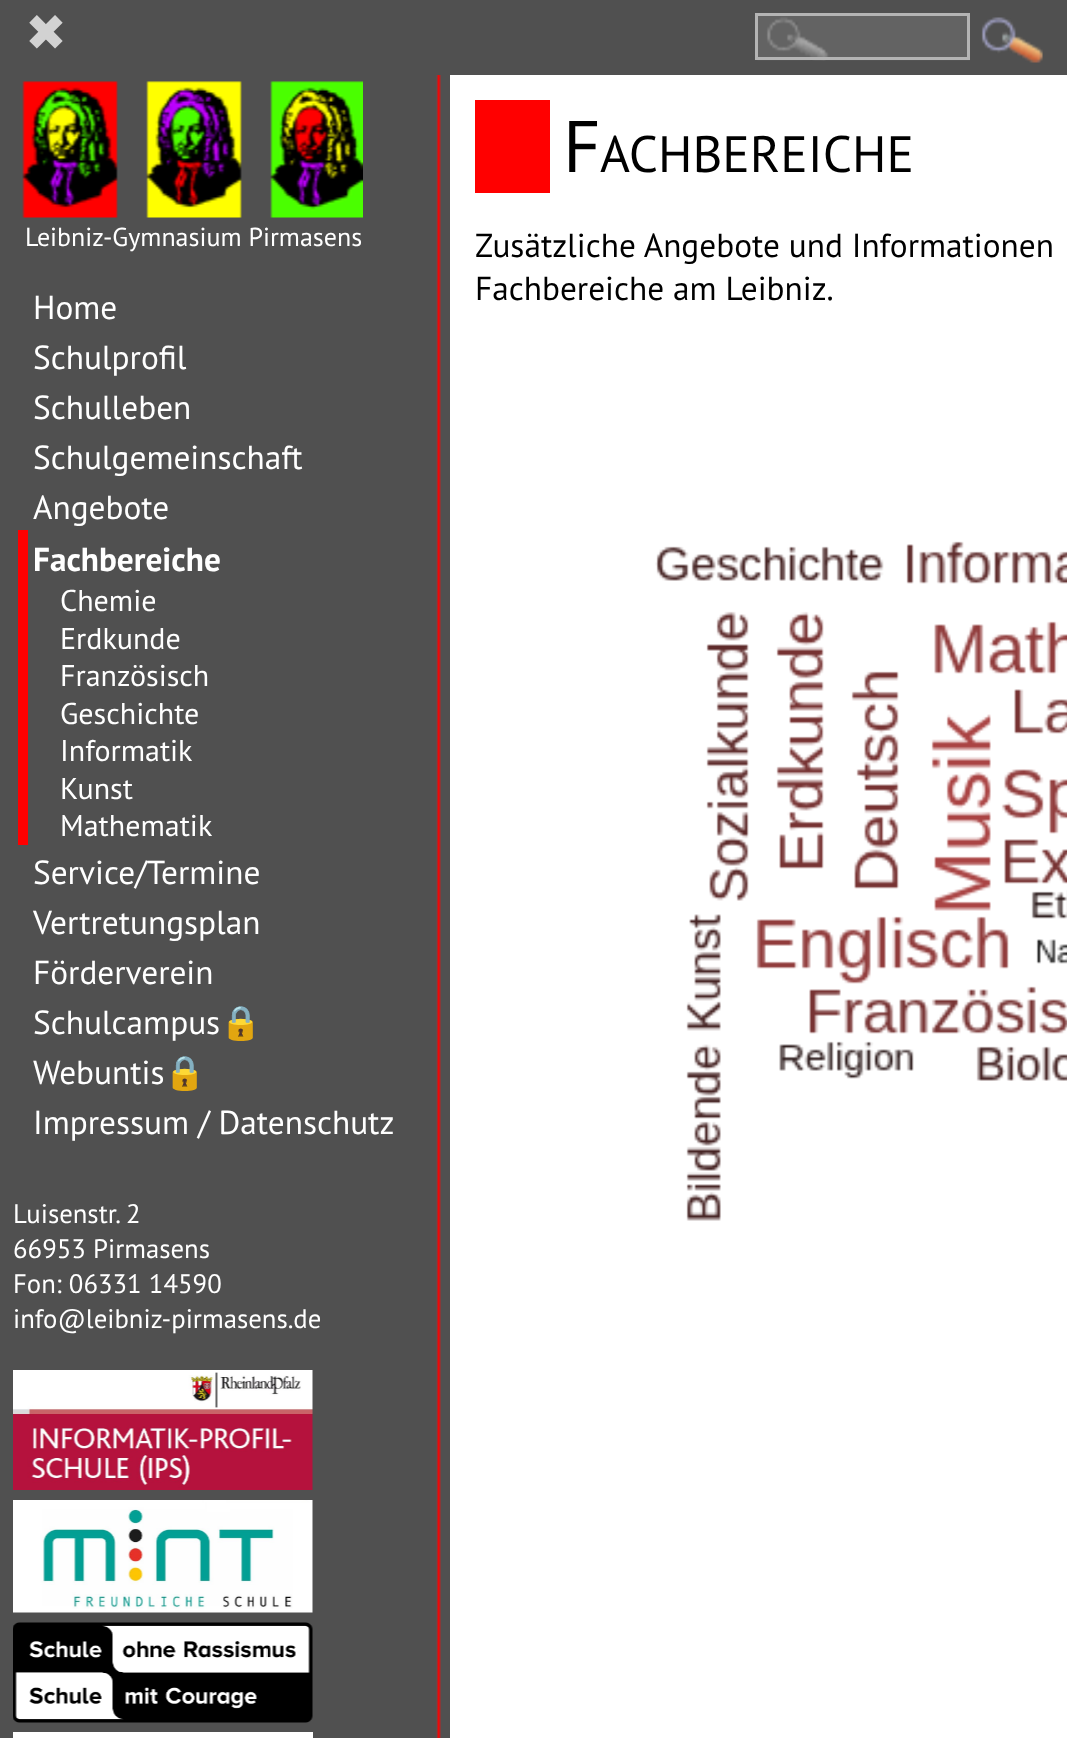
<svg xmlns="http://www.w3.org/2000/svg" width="1067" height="1738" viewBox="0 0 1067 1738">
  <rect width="100%" height="100%" fill="#ffffff"/>
  <rect x="0" y="0" width="1067" height="75" fill="#505050"/>
  <text x="25" y="50" font-family="DejaVu Sans" font-size="50" fill="#d2d2d2">✖</text>
  <image x="757" y="16" width="213" height="45" href="img1.png"/>
  <rect x="756.5" y="14.5" width="212" height="44" fill="none" stroke="#b4b4b4" stroke-width="3"/>
  <image x="981" y="17" width="62" height="46" href="img2.png"/>
  <rect x="0" y="75" width="450" height="1663" fill="#505050"/>
  <image x="436" y="75" width="5" height="1663" href="img3.png"/>
  <image x="22" y="81" width="341" height="137" href="img4.png"/>
  <text x="25" y="246" font-family="PT Sans" font-size="26" fill="#ffffff">Leibniz-Gymnasium Pirmasens</text>
  <text x="33" y="319" font-family="PT Sans" font-size="33.3" fill="#ffffff">Home</text>
  <text x="33" y="369" font-family="PT Sans" font-size="33.3" fill="#ffffff">Schulprofil</text>
  <text x="33" y="419" font-family="PT Sans" font-size="33.3" fill="#ffffff">Schulleben</text>
  <text x="33" y="469" font-family="PT Sans" font-size="33.3" fill="#ffffff">Schulgemeinschaft</text>
  <text x="33" y="519" font-family="PT Sans" font-size="33.3" fill="#ffffff">Angebote</text>
  <rect x="18" y="530" width="10" height="315" fill="#ff0000"/>
  <text x="33" y="571" font-family="PT Sans" font-size="33.3" font-weight="bold" fill="#ffffff">Fachbereiche</text>
  <text x="60" y="611" font-family="PT Sans" font-size="30" fill="#ffffff">Chemie</text>
  <text x="60" y="649" font-family="PT Sans" font-size="30" fill="#ffffff">Erdkunde</text>
  <text x="60" y="686" font-family="PT Sans" font-size="30" fill="#ffffff">Französisch</text>
  <text x="60" y="724" font-family="PT Sans" font-size="30" fill="#ffffff">Geschichte</text>
  <text x="60" y="761" font-family="PT Sans" font-size="30" fill="#ffffff">Informatik</text>
  <text x="60" y="799" font-family="PT Sans" font-size="30" fill="#ffffff">Kunst</text>
  <text x="60" y="836" font-family="PT Sans" font-size="30" fill="#ffffff">Mathematik</text>
  <text x="33" y="884" font-family="PT Sans" font-size="33.3" fill="#ffffff">Service/Termine</text>
  <text x="33" y="934" font-family="PT Sans" font-size="33.3" fill="#ffffff">Vertretungsplan</text>
  <text x="33" y="984" font-family="PT Sans" font-size="33.3" fill="#ffffff">Förderverein</text>
  <text x="33" y="1034" font-family="PT Sans" font-size="33.3" fill="#ffffff">Schulcampus</text>
  <text x="220" y="1034" font-family="Noto Color Emoji" font-size="33.3" fill="#ffffff">🔒</text>
  <text x="33" y="1084" font-family="PT Sans" font-size="33.3" fill="#ffffff">Webuntis</text>
  <text x="164" y="1084" font-family="Noto Color Emoji" font-size="33.3" fill="#ffffff">🔒</text>
  <text x="33" y="1134" font-family="PT Sans" font-size="33.3" fill="#ffffff">Impressum / Datenschutz</text>
  <text x="13" y="1223" font-family="PT Sans" font-size="26.75" fill="#ffffff">Luisenstr. 2</text>
  <text x="13" y="1258" font-family="PT Sans" font-size="26.75" fill="#ffffff">66953 Pirmasens</text>
  <text x="13" y="1293" font-family="PT Sans" font-size="26.75" fill="#ffffff">Fon: 06331 14590</text>
  <text x="13" y="1328" font-family="PT Sans" font-size="26.75" fill="#ffffff">info@leibniz-pirmasens.de</text>
  <image x="13" y="1370" width="300" height="120" href="img5.png"/>
  <image x="13" y="1500" width="300" height="113" href="img6.png"/>
  <image x="13" y="1622" width="300" height="101" href="img7.png"/>
  <rect x="13" y="1732" width="300" height="6" fill="#ffffff"/>
  <rect x="475" y="100" width="75" height="93" fill="#ff0000"/>
  <text x="563" y="172" font-family="PT Sans" font-size="73" fill="#000000">F</text>
  <text x="600" y="172" font-family="PT Sans" font-size="51.25" fill="#000000">ACHBEREICHE</text>
  <text x="475" y="257" font-family="PT Sans" font-size="33.3" fill="#000000">Zusätzliche Angebote und Informationen</text>
  <text x="475" y="300" font-family="PT Sans" font-size="33.3" fill="#000000">Fachbereiche am Leibniz.</text>
  <image x="655" y="541" width="412" height="680" href="img8.png"/>
</svg>
